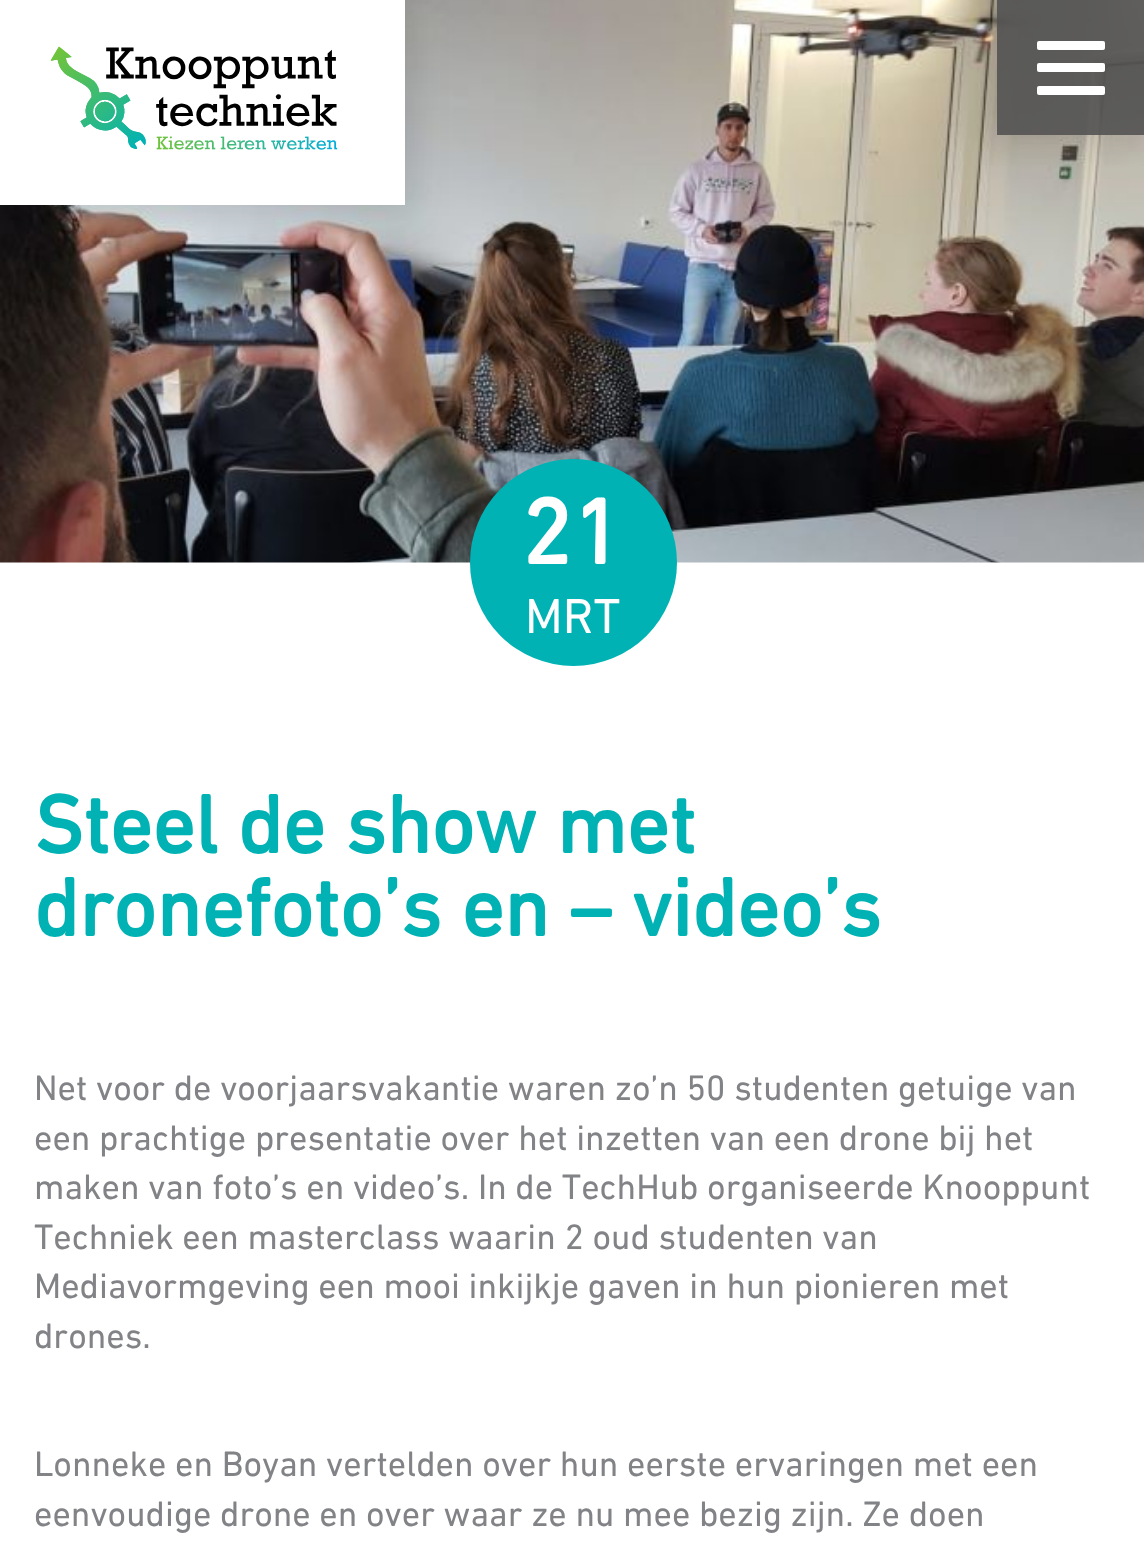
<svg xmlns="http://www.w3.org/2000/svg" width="1144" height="1559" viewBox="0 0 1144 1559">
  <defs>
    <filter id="blur1" x="-50%" y="-200%" width="200%" height="500%"><feGaussianBlur stdDeviation="17"/></filter>
    <clipPath id="clip1"><path d="M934 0H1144V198H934ZM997 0H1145V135H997Z" clip-rule="evenodd"/></clipPath>
  </defs>
  <rect width="100%" height="100%" fill="#ffffff"/>
  <image x="0" y="0" width="1144" height="563" href="img2.png"/>
  <rect x="-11" y="-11" width="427" height="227" fill="#000000" fill-opacity="0.1" filter="url(#blur1)"/>
  <rect x="0" y="0" width="405" height="205" fill="#ffffff"/>
  <image x="50" y="46" width="288" height="104" href="img1.png"/>
  <g clip-path="url(#clip1)">
    <rect x="986" y="-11" width="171" height="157" fill="#000000" fill-opacity="0.1" filter="url(#blur1)"/>
  </g>
  <rect x="997" y="0" width="147" height="135" fill="#525252" fill-opacity="0.9"/>
  <rect x="1037" y="41" width="68" height="9" rx="2" fill="#ffffff"/>
  <rect x="1037" y="63" width="68" height="9" rx="2" fill="#ffffff"/>
  <rect x="1037" y="86" width="68" height="9" rx="2" fill="#ffffff"/>
  <circle cx="573.5" cy="562.5" r="103.5" fill="#00b2b4"/>
  <text x="521" y="564" font-family="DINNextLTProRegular" font-size="94" font-weight="bold" fill="#ffffff">21</text>
  <text x="525" y="633" font-family="DINNextLTProRegular" font-size="50" fill="#ffffff">MRT</text>
  <text x="34" y="853" font-family="DINNextLTProRegular" font-size="83.25" font-weight="bold" fill="#00b2b4">Steel de show met</text>
  <text x="34" y="936" font-family="DINNextLTProRegular" font-size="83.25" font-weight="bold" fill="#00b2b4">dronefoto’s en – video’s</text>
  <text x="34" y="1100" font-family="DINNextLTProRegular" font-size="36" fill="#828386">Net voor de voorjaarsvakantie waren zo’n 50 studenten getuige van</text>
  <text x="34" y="1150" font-family="DINNextLTProRegular" font-size="36" fill="#828386">een prachtige presentatie over het inzetten van een drone bij het</text>
  <text x="34" y="1199" font-family="DINNextLTProRegular" font-size="36" fill="#828386">maken van foto’s en video’s. In de TechHub organiseerde Knooppunt</text>
  <text x="34" y="1249" font-family="DINNextLTProRegular" font-size="36" fill="#828386">Techniek een masterclass waarin 2 oud studenten van</text>
  <text x="34" y="1298" font-family="DINNextLTProRegular" font-size="36" fill="#828386">Mediavormgeving een mooi inkijkje gaven in hun pionieren met</text>
  <text x="34" y="1348" font-family="DINNextLTProRegular" font-size="36" fill="#828386">drones.</text>
  <text x="34" y="1476" font-family="DINNextLTProRegular" font-size="36" fill="#828386">Lonneke en Boyan vertelden over hun eerste ervaringen met een</text>
  <text x="34" y="1526" font-family="DINNextLTProRegular" font-size="36" fill="#828386">eenvoudige drone en over waar ze nu mee bezig zijn. Ze doen</text>
</svg>
